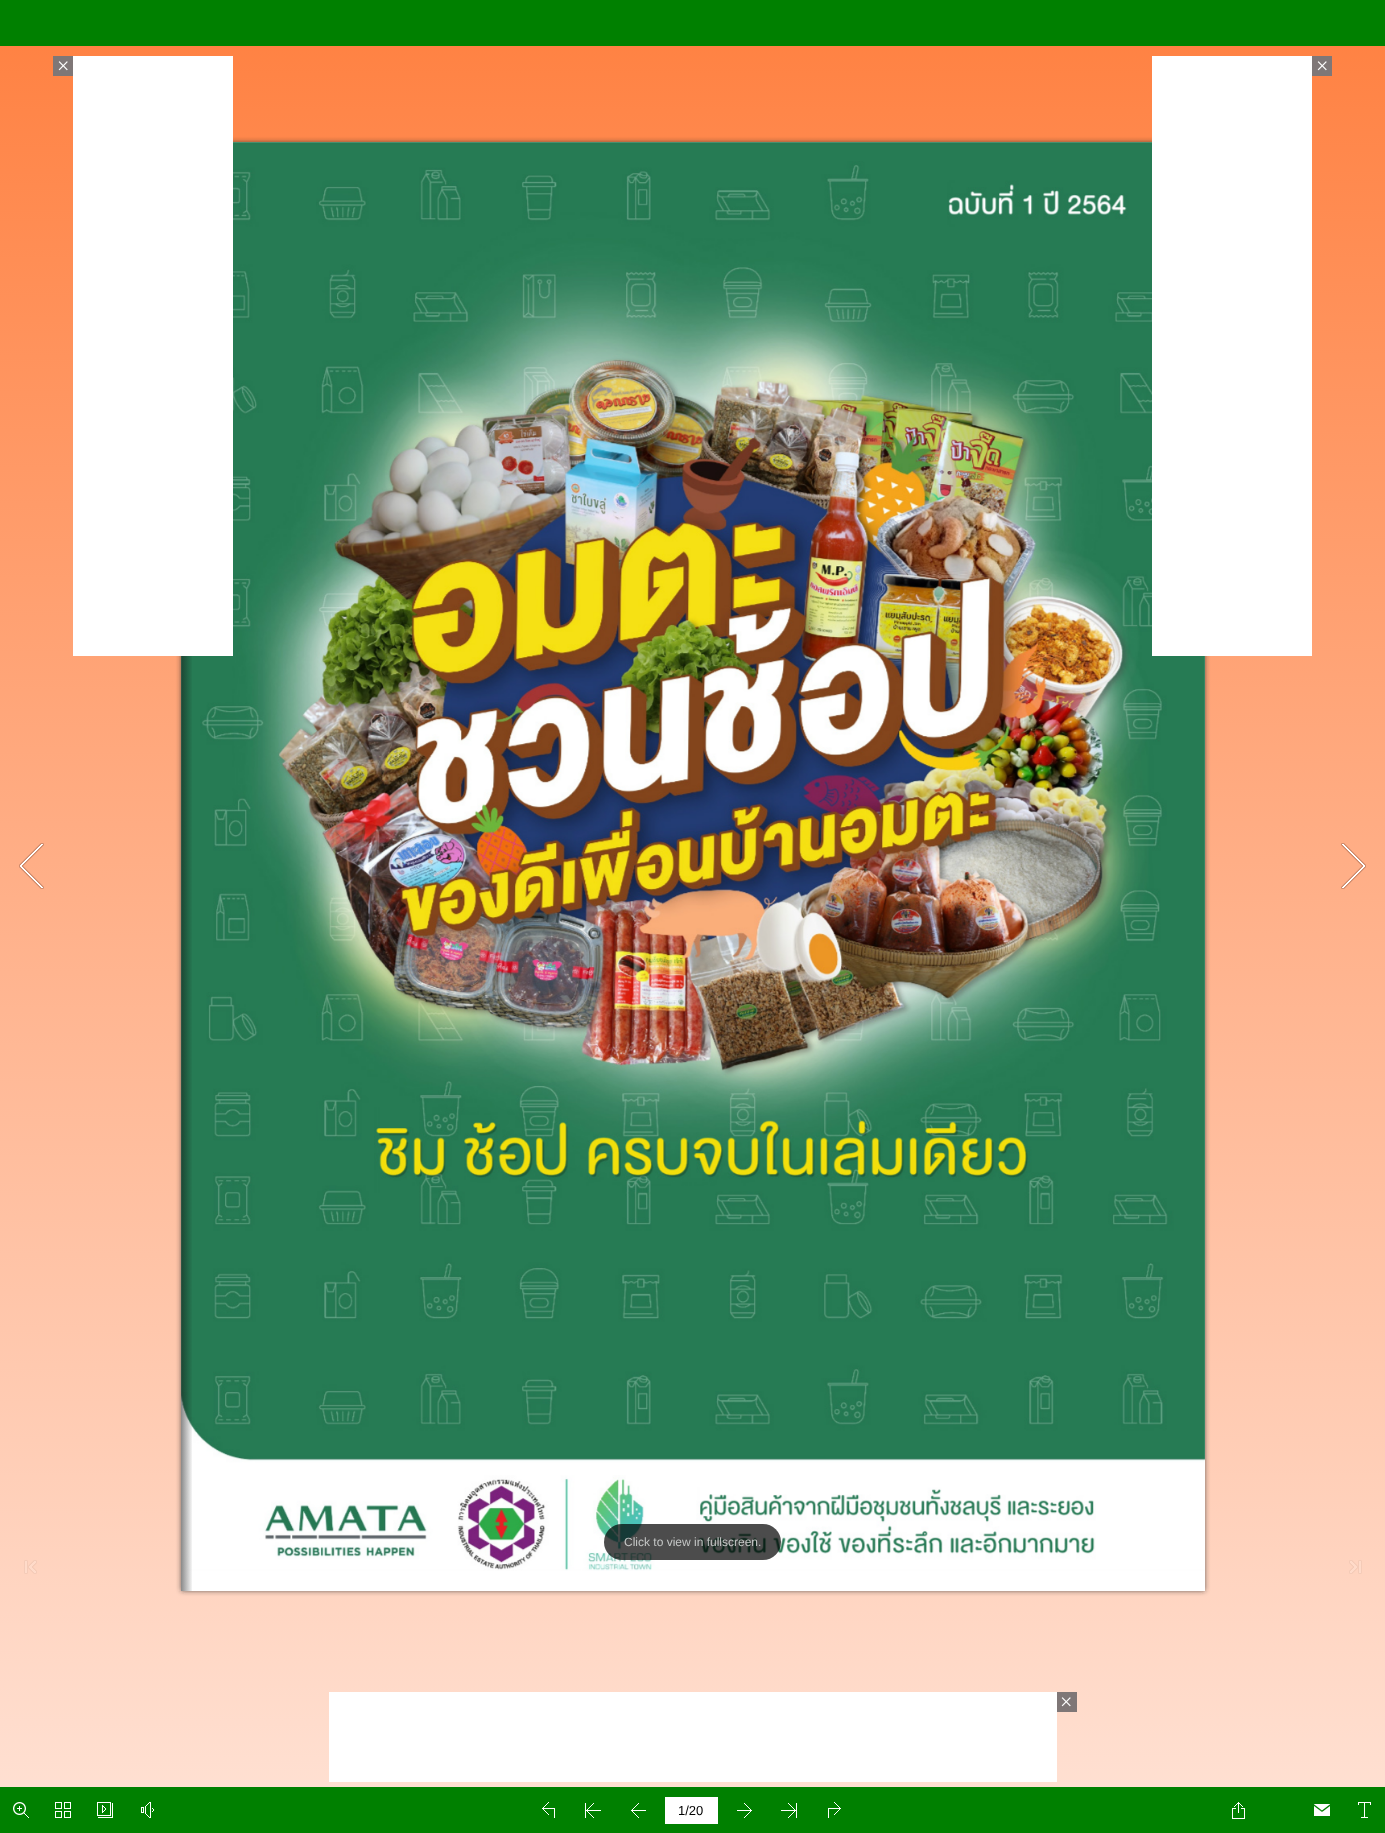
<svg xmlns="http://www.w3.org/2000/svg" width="1385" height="1833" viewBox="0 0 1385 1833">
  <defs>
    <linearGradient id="g1" gradientUnits="userSpaceOnUse" x1="692" y1="0" x2="693" y2="1833"><stop offset="0" stop-color="#ff8040"/><stop offset="1" stop-color="#ffe2d5"/></linearGradient>
    <filter id="blur1" x="-50%" y="-200%" width="200%" height="500%"><feGaussianBlur stdDeviation="2.5"/></filter>
    <linearGradient id="g2" gradientUnits="userSpaceOnUse" x1="181" y1="867" x2="193" y2="867"><stop offset="0" stop-color="#141414" stop-opacity="0.5"/><stop offset="1" stop-color="#141414" stop-opacity="0"/></linearGradient>
  </defs>
  <rect width="100%" height="100%" fill="#ffffff"/>
  <rect x="0" y="46" width="1385" height="1741" fill="url(#g1)"/>
  <rect x="181" y="142" width="1024" height="1449" fill="#282828" fill-opacity="0.7" filter="url(#blur1)"/>
  <rect x="181" y="142" width="1024" height="1449" fill="#ffffff"/>
  <image x="181" y="142" width="1024" height="1429" href="img3.png"/>
  <rect x="73" y="56" width="160" height="600" fill="#ffffff"/>
  <rect x="53" y="56" width="20" height="20" fill="#7f7777"/>
  <text x="57" y="73" font-family="Liberation Serif" font-size="22" fill="#ffffff">×</text>
  <rect x="1152" y="56" width="160" height="600" fill="#ffffff"/>
  <rect x="1312" y="56" width="20" height="20" fill="#7f7777"/>
  <text x="1316" y="73" font-family="Liberation Serif" font-size="22" fill="#ffffff">×</text>
  <rect x="0" y="0" width="1385" height="46" fill="#008000"/>
  <image x="19" y="843" width="25" height="46" href="img1.png"/>
  <image x="1341" y="843" width="25" height="46" href="img2.png"/>
  <rect x="181" y="656" width="11" height="935" fill="url(#g2)"/>
  <rect x="604" y="1524" width="177" height="36" rx="18" fill="#000000" fill-opacity="0.7"/>
  <text x="624" y="1546" font-family="Liberation Sans" font-size="12" fill="#c5c7c6">Click to view in fullscreen.</text>
  <image x="24" y="1560" width="13" height="14" href="img4.png"/>
  <image x="1349" y="1560" width="13" height="14" href="img5.png"/>
  <rect x="0" y="1787" width="1385" height="46" fill="#008000"/>
  <image x="13" y="1802" width="16" height="16" href="img6.png"/>
  <image x="55" y="1802" width="16" height="16" href="img7.png"/>
  <image x="97" y="1802" width="16" height="16" href="img8.png"/>
  <image x="141" y="1802" width="13" height="16" href="img9.png"/>
  <image x="542" y="1802" width="13" height="16" href="img10.png"/>
  <image x="585" y="1803" width="16" height="15" href="img11.png"/>
  <image x="631" y="1803" width="15" height="15" href="img12.png"/>
  <rect x="665" y="1797" width="53" height="27" fill="#ffffff"/>
  <text x="678" y="1815" font-family="Liberation Sans" font-size="13" fill="#000000">1/20</text>
  <image x="737" y="1803" width="15" height="15" href="img13.png"/>
  <image x="781" y="1803" width="16" height="15" href="img14.png"/>
  <image x="828" y="1802" width="13" height="16" href="img15.png"/>
  <image x="1232" y="1802" width="13" height="17" href="img16.png"/>
  <image x="1314" y="1804" width="16" height="12" href="img17.png"/>
  <image x="1358" y="1802" width="13" height="16" href="img18.png"/>
  <rect x="329" y="1692" width="728" height="90" fill="#ffffff"/>
  <rect x="1057" y="1692" width="20" height="20" fill="#7f7777"/>
  <text x="1060" y="1709" font-family="Liberation Serif" font-size="22" fill="#ffffff">×</text>
</svg>
